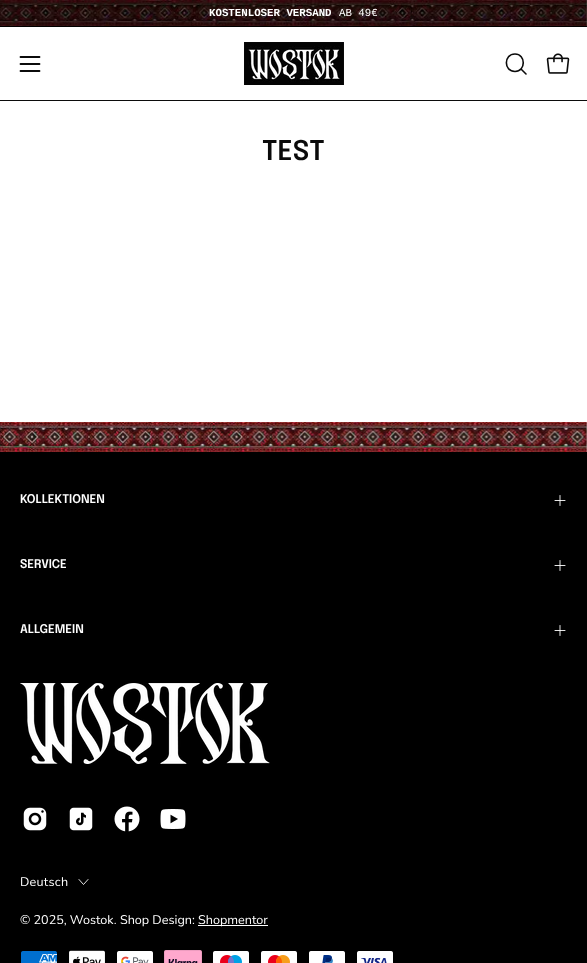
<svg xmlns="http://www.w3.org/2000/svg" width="587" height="963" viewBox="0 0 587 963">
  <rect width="100%" height="100%" fill="#ffffff"/>
  <rect x="0" y="26" width="587" height="1" fill="#000000"/>
  <image x="0" y="0" width="587" height="26" href="img1.png"/>
  <text x="209" y="16" font-family="Liberation Mono" font-size="10.75" font-weight="bold" fill="#ffffff">KOSTENLOSER VERSAND</text>
  <text x="339" y="16" font-family="Liberation Mono" font-size="10.75" fill="#ffffff">AB 49€</text>
  <path d="M20.5 64H39.5M20.5 57H39.5M20.5 71H39.5" fill="none" stroke="#0b0b0b" stroke-width="1.8" stroke-linecap="round" stroke-linejoin="round"/>
  <image x="244" y="42" width="100" height="43" href="img2.png"/>
  <path d="M515 71.5C526 71.5 526 54 515 54C503.5 54 503.5 71.5 515 71.5ZM521 69L526 74" fill="none" stroke="#0b0b0b" stroke-width="1.6" stroke-linecap="round" stroke-linejoin="round"/>
  <image x="546" y="53" width="24" height="21" href="img3.png"/>
  <rect x="0" y="100" width="587" height="1" fill="#0b0b0b"/>
  <text x="262" y="160" font-family="Epilogue" font-size="27" font-weight="600" fill="#0b0b0b">TEST</text>
  <image x="0" y="422" width="587" height="30" href="img4.png"/>
  <rect x="0" y="452" width="587" height="511" fill="#000000"/>
  <text x="20" y="503" font-family="Epilogue" font-size="12" font-weight="600" fill="#ffffff">KOLLEKTIONEN</text>
  <path d="M555 500.5H565M560 495.5V505.5" fill="none" stroke="#ffffff" stroke-width="0.9" stroke-linecap="round" stroke-linejoin="round"/>
  <text x="20" y="568" font-family="Epilogue" font-size="12" font-weight="600" fill="#ffffff">SERVICE</text>
  <path d="M555 565.5H565M560 560.5V570.5" fill="none" stroke="#ffffff" stroke-width="0.9" stroke-linecap="round" stroke-linejoin="round"/>
  <text x="20" y="633" font-family="Epilogue" font-size="12" font-weight="600" fill="#ffffff">ALLGEMEIN</text>
  <path d="M555 630.5H565M560 625.5V635.5" fill="none" stroke="#ffffff" stroke-width="0.9" stroke-linecap="round" stroke-linejoin="round"/>
  <image x="20" y="683" width="250" height="81" href="img5.png"/>
  <image x="23" y="807" width="24" height="24" href="img6.png"/>
  <image x="69" y="807" width="24" height="24" href="img7.png"/>
  <image x="114" y="806" width="26" height="26" href="img8.png"/>
  <image x="160" y="809" width="26" height="20" href="img9.png"/>
  <text x="20" y="886" font-family="Nunito" font-size="12.6" letter-spacing="0.25" fill="#ffffff">Deutsch</text>
  <path d="M88 879.5L83.5 884.5L79 879.5" fill="none" stroke="#ffffff" stroke-width="0.9" stroke-linecap="round" stroke-linejoin="round"/>
  <text x="20" y="924" font-family="Nunito" font-size="12.6" fill="#ffffff">© 2025, Wostok. Shop Design:</text>
  <rect x="198" y="925" width="70" height="1" fill="#ffffff"/>
  <text x="198" y="924" font-family="Nunito" font-size="12.6" fill="#ffffff">Shopmentor</text>
  <image x="21" y="951" width="36" height="12" href="img10.png"/>
  <image x="69" y="950" width="36" height="13" href="img11.png"/>
  <image x="117" y="951" width="36" height="12" href="img12.png"/>
  <image x="164" y="950" width="38" height="13" href="img13.png"/>
  <image x="213" y="951" width="36" height="12" href="img14.png"/>
  <image x="261" y="951" width="36" height="12" href="img15.png"/>
  <image x="309" y="951" width="36" height="12" href="img16.png"/>
  <image x="357" y="951" width="36" height="12" href="img17.png"/>
</svg>
